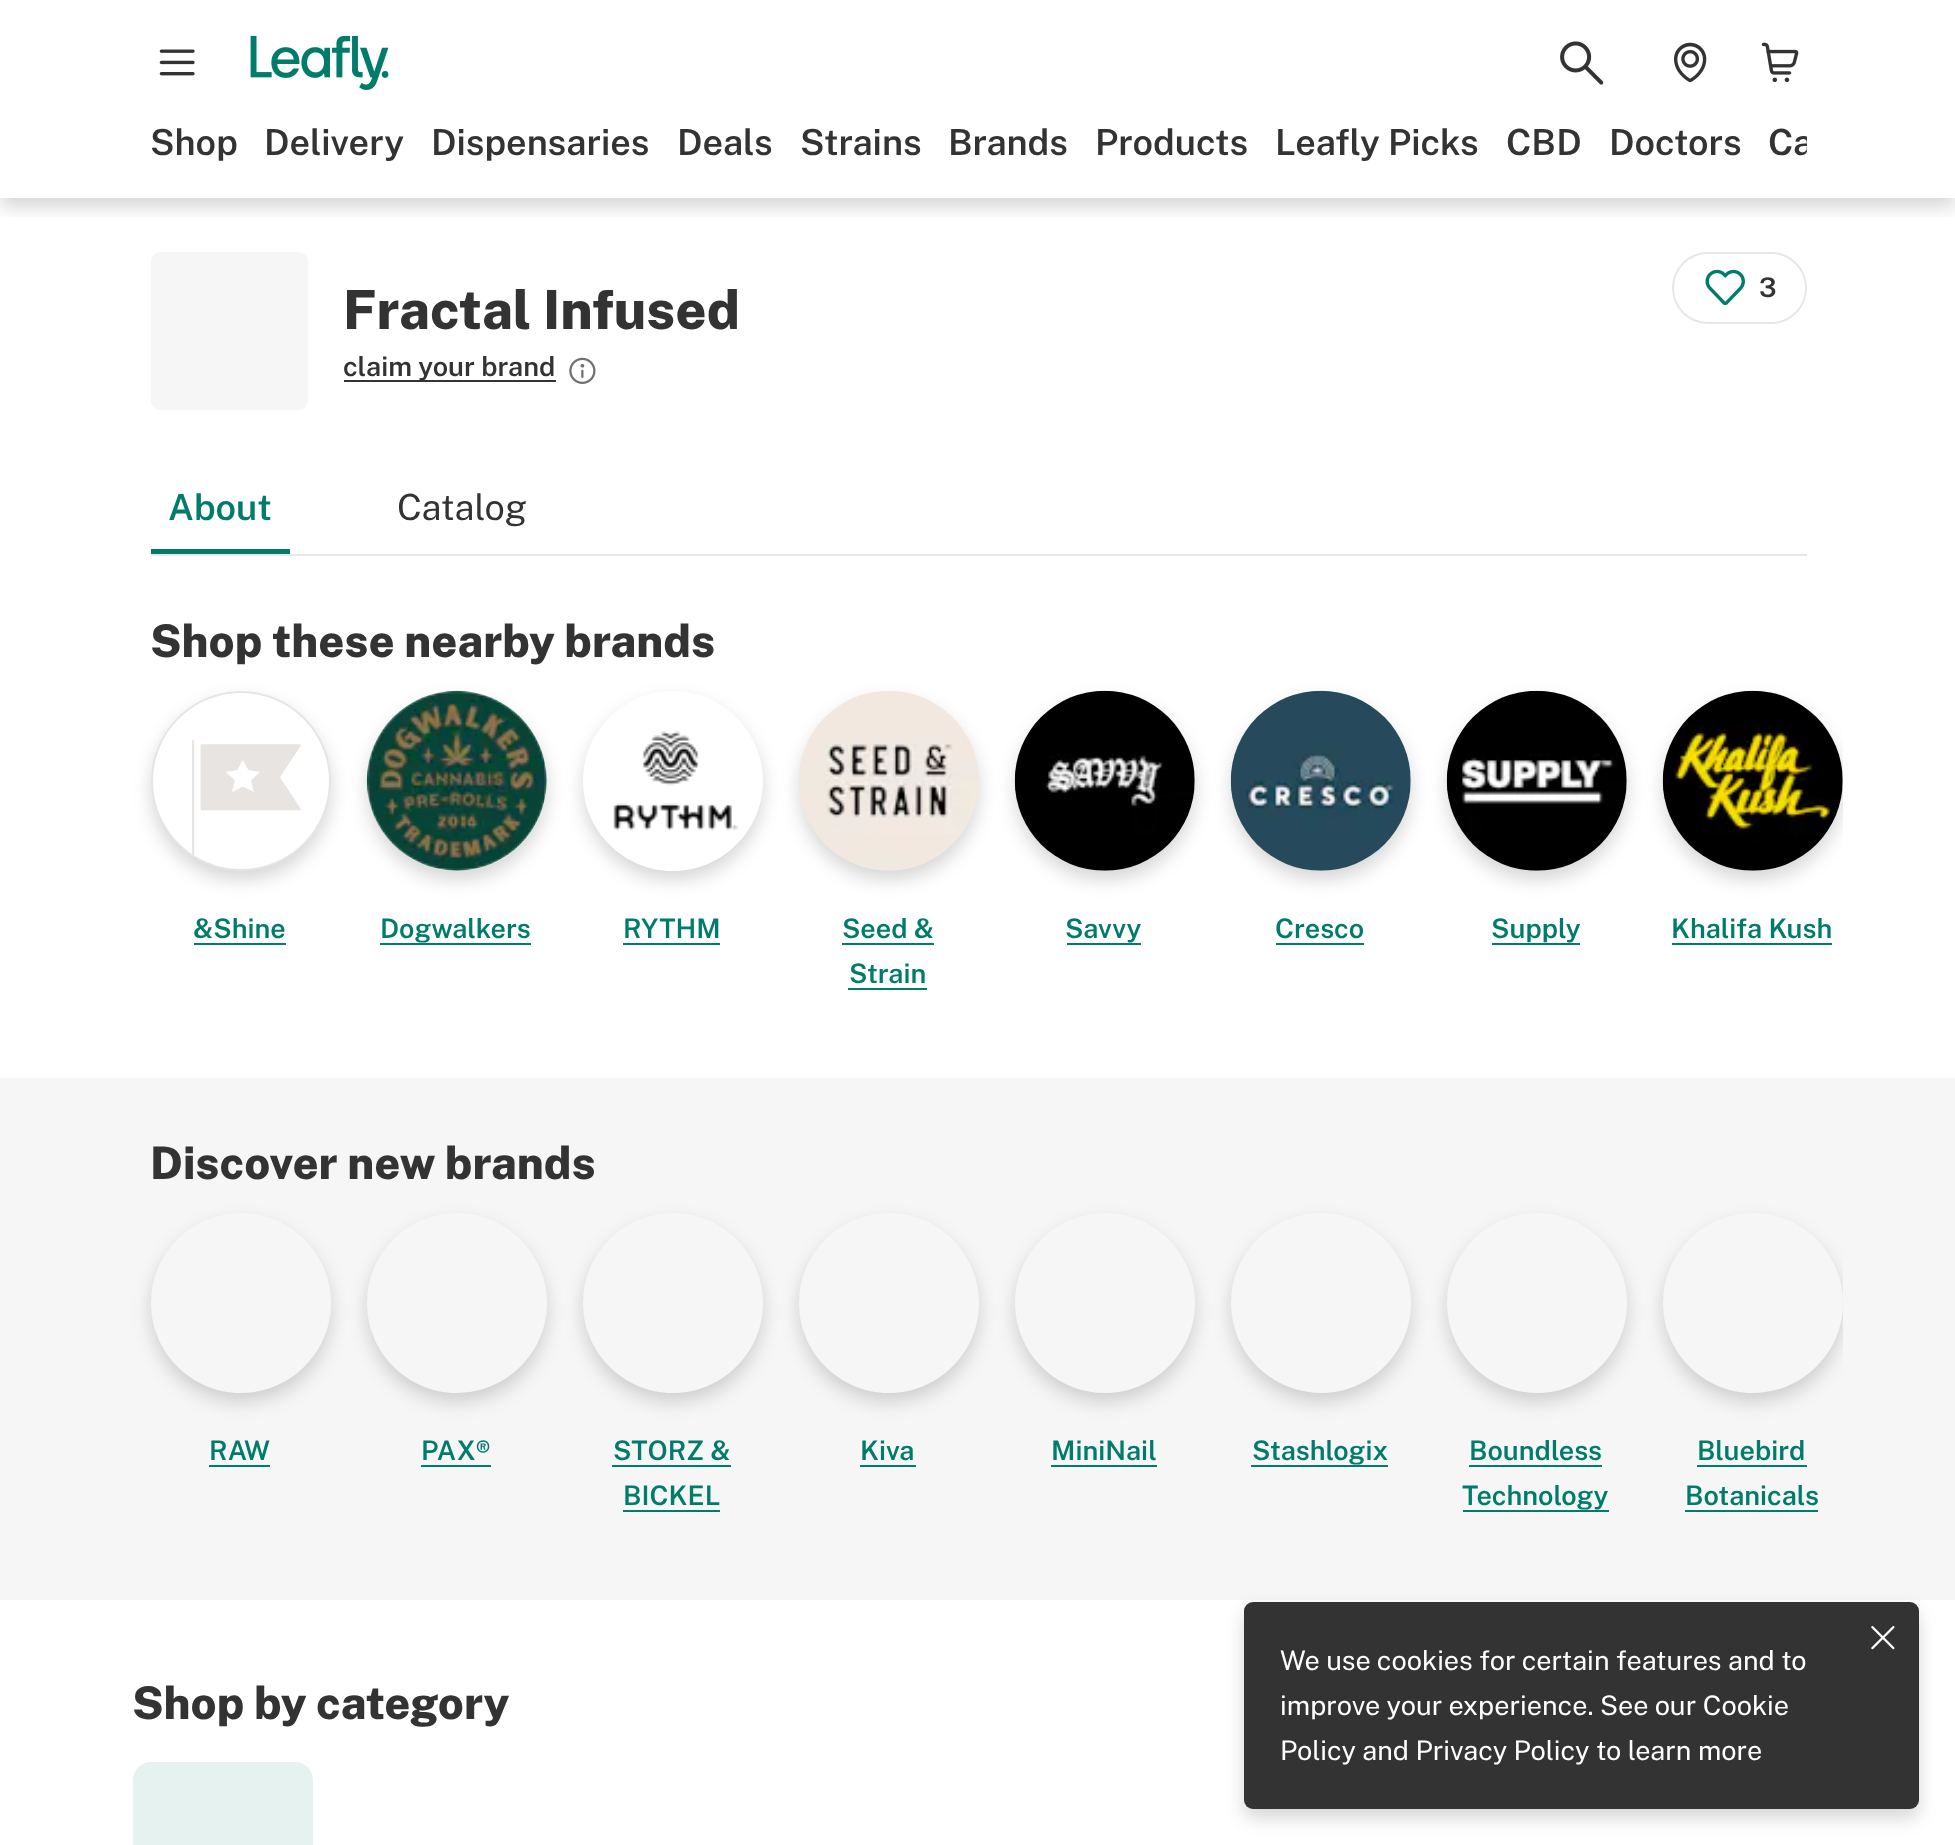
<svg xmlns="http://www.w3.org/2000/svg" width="1955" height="1845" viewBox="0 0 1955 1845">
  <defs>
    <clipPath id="clip1"><rect x="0" y="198" width="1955" height="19"/></clipPath>
    <filter id="blur1" x="-50%" y="-200%" width="200%" height="500%"><feGaussianBlur stdDeviation="9"/></filter>
    <clipPath id="clip2"><rect x="151" y="90" width="1656" height="108"/></clipPath>
    <clipPath id="clip3"><path d="M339 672H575V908H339ZM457 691C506.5 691 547 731.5 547 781C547 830.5 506.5 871 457 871C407.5 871 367 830.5 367 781C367 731.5 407.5 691 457 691Z" clip-rule="evenodd"/></clipPath>
    <clipPath id="clip4"><path d="M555 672H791V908H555ZM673 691C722.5 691 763 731.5 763 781C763 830.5 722.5 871 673 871C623.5 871 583 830.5 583 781C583 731.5 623.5 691 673 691Z" clip-rule="evenodd"/></clipPath>
    <clipPath id="clip5"><rect x="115" y="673" width="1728" height="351"/></clipPath>
    <clipPath id="clip6"><path d="M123 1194H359V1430H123ZM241 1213C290.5 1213 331 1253.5 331 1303C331 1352.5 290.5 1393 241 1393C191.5 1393 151 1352.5 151 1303C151 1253.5 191.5 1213 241 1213Z" clip-rule="evenodd"/></clipPath>
    <clipPath id="clip7"><path d="M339 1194H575V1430H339ZM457 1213C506.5 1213 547 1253.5 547 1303C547 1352.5 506.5 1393 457 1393C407.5 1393 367 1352.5 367 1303C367 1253.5 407.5 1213 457 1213Z" clip-rule="evenodd"/></clipPath>
    <clipPath id="clip8"><path d="M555 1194H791V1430H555ZM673 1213C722.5 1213 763 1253.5 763 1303C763 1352.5 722.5 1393 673 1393C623.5 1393 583 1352.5 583 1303C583 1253.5 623.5 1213 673 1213Z" clip-rule="evenodd"/></clipPath>
    <clipPath id="clip9"><path d="M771 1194H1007V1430H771ZM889 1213C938.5 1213 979 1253.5 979 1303C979 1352.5 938.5 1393 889 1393C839.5 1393 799 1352.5 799 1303C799 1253.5 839.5 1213 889 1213Z" clip-rule="evenodd"/></clipPath>
    <clipPath id="clip10"><path d="M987 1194H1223V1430H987ZM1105 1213C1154.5 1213 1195 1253.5 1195 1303C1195 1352.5 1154.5 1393 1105 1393C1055.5 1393 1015 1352.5 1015 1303C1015 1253.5 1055.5 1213 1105 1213Z" clip-rule="evenodd"/></clipPath>
    <clipPath id="clip11"><path d="M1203 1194H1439V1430H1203ZM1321 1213C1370.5 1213 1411 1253.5 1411 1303C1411 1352.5 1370.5 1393 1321 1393C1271.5 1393 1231 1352.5 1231 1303C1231 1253.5 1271.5 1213 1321 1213Z" clip-rule="evenodd"/></clipPath>
    <clipPath id="clip12"><path d="M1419 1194H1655V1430H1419ZM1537 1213C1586.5 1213 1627 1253.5 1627 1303C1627 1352.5 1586.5 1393 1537 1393C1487.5 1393 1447 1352.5 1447 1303C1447 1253.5 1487.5 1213 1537 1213Z" clip-rule="evenodd"/></clipPath>
    <clipPath id="clip13"><rect x="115" y="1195" width="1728" height="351"/></clipPath>
    <clipPath id="clip14"><path d="M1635 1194H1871V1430H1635ZM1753 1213C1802.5 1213 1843 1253.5 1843 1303C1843 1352.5 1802.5 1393 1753 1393C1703.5 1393 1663 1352.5 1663 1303C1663 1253.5 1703.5 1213 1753 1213Z" clip-rule="evenodd"/></clipPath>
  </defs>
  <rect width="100%" height="100%" fill="#ffffff"/>
  <g clip-path="url(#clip1)">
    <rect x="0" y="9" width="1955" height="198" fill="#000000" fill-opacity="0.16" filter="url(#blur1)"/>
  </g>
  <image x="159" y="49" width="36" height="27" href="img1.png"/>
  <image x="250" y="36" width="139" height="54" href="img2.png"/>
  <image x="1560" y="41" width="44" height="44" href="img3.png"/>
  <image x="1674" y="42" width="33" height="41" href="img4.png"/>
  <image x="1761" y="42" width="38" height="41" href="img5.png"/>
  <text x="150" y="155" font-family="Public Sans" font-size="36" font-weight="600" fill="#333333">Shop</text>
  <text x="264" y="155" font-family="Public Sans" font-size="36" font-weight="600" fill="#333333">Delivery</text>
  <text x="431" y="155" font-family="Public Sans" font-size="36" font-weight="600" fill="#333333">Dispensaries</text>
  <text x="677" y="155" font-family="Public Sans" font-size="36" font-weight="600" fill="#333333">Deals</text>
  <text x="800" y="155" font-family="Public Sans" font-size="36" font-weight="600" fill="#333333">Strains</text>
  <text x="948" y="155" font-family="Public Sans" font-size="36" font-weight="600" fill="#333333">Brands</text>
  <text x="1095" y="155" font-family="Public Sans" font-size="36" font-weight="600" fill="#333333">Products</text>
  <text x="1275" y="155" font-family="Public Sans" font-size="36" font-weight="600" fill="#333333">Leafly Picks</text>
  <text x="1506" y="155" font-family="Public Sans" font-size="36" font-weight="600" fill="#333333">CBD</text>
  <text x="1609" y="155" font-family="Public Sans" font-size="36" font-weight="600" fill="#333333">Doctors</text>
  <g clip-path="url(#clip2)">
    <text x="1768" y="155" font-family="Public Sans" font-size="36" font-weight="600" fill="#333333">Ca</text>
  </g>
  <rect x="151" y="252" width="157" height="158" rx="9" fill="#f6f6f6"/>
  <text x="343" y="329" font-family="Public Sans" font-size="54" font-weight="800" fill="#333333">Fractal Infused</text>
  <rect x="344" y="380" width="212" height="2" fill="#333333"/>
  <text x="343" y="376" font-family="Public Sans" font-size="27" font-weight="600" fill="#333333">claim your brand</text>
  <image x="569" y="357" width="27" height="27" href="img6.png"/>
  <rect x="1673" y="253" width="133" height="70" rx="35" fill="none" stroke="#e7e7e7" stroke-width="2"/>
  <image x="1705" y="269" width="40" height="37" href="img7.png"/>
  <text x="1759" y="297" font-family="Public Sans" font-size="27" font-weight="600" fill="#333333">3</text>
  <rect x="151" y="554" width="1656" height="2" fill="#e7e7e7"/>
  <rect x="151" y="549" width="139" height="5" fill="#017c6b"/>
  <text x="168" y="520" font-family="Public Sans" font-size="36" font-weight="600" fill="#017c6b">About</text>
  <text x="397" y="520" font-family="Public Sans" font-size="36" fill="#333333">Catalog</text>
  <text x="150" y="657" font-family="Public Sans" font-size="45" font-weight="800" fill="#333333">Shop these nearby brands</text>
  <rect x="151" y="700" width="180" height="180" rx="90" fill="#000000" fill-opacity="0.16" filter="url(#blur1)"/>
  <image x="151" y="691" width="180" height="180" href="img8.png"/>
  <text x="193" y="938" font-family="Public Sans" font-size="27" font-weight="600" fill="#017c6b">&amp;Shine</text>
  <rect x="194" y="943" width="92" height="2" fill="#017c6b"/>
  <g clip-path="url(#clip3)">
    <rect x="367" y="700" width="180" height="180" rx="90" fill="#000000" fill-opacity="0.16" filter="url(#blur1)"/>
  </g>
  <image x="366" y="690" width="181" height="181" href="img9.png"/>
  <text x="380" y="938" font-family="Public Sans" font-size="27" font-weight="600" fill="#017c6b">Dogwalkers</text>
  <rect x="380" y="943" width="151" height="2" fill="#017c6b"/>
  <g clip-path="url(#clip4)">
    <rect x="583" y="700" width="180" height="180" rx="90" fill="#000000" fill-opacity="0.16" filter="url(#blur1)"/>
  </g>
  <image x="613" y="731" width="126" height="100" href="img10.png"/>
  <text x="623" y="938" font-family="Public Sans" font-size="27" font-weight="600" fill="#017c6b">RYTHM</text>
  <rect x="623" y="943" width="97" height="2" fill="#017c6b"/>
  <rect x="799" y="700" width="180" height="180" rx="90" fill="#000000" fill-opacity="0.16" filter="url(#blur1)"/>
  <image x="799" y="691" width="180" height="180" href="img11.png"/>
  <text x="842" y="938" font-family="Public Sans" font-size="27" font-weight="600" fill="#017c6b">Seed &amp;</text>
  <rect x="842" y="943" width="92" height="2" fill="#017c6b"/>
  <text x="849" y="983" font-family="Public Sans" font-size="27" font-weight="600" fill="#017c6b">Strain</text>
  <rect x="848" y="988" width="79" height="2" fill="#017c6b"/>
  <rect x="1015" y="700" width="180" height="180" rx="90" fill="#000000" fill-opacity="0.16" filter="url(#blur1)"/>
  <image x="1014" y="690" width="181" height="181" href="img12.png"/>
  <text x="1065" y="938" font-family="Public Sans" font-size="27" font-weight="600" fill="#017c6b">Savvy</text>
  <rect x="1067" y="943" width="74" height="2" fill="#017c6b"/>
  <rect x="1231" y="700" width="180" height="180" rx="90" fill="#000000" fill-opacity="0.16" filter="url(#blur1)"/>
  <image x="1230" y="690" width="181" height="181" href="img13.png"/>
  <text x="1275" y="938" font-family="Public Sans" font-size="27" font-weight="600" fill="#017c6b">Cresco</text>
  <rect x="1276" y="943" width="88" height="2" fill="#017c6b"/>
  <rect x="1447" y="700" width="180" height="180" rx="90" fill="#000000" fill-opacity="0.16" filter="url(#blur1)"/>
  <image x="1446" y="690" width="181" height="181" href="img14.png"/>
  <text x="1491" y="938" font-family="Public Sans" font-size="27" font-weight="600" fill="#017c6b">Supply</text>
  <rect x="1492" y="943" width="88" height="2" fill="#017c6b"/>
  <g clip-path="url(#clip5)">
    <rect x="1663" y="700" width="180" height="180" rx="90" fill="#000000" fill-opacity="0.16" filter="url(#blur1)"/>
  </g>
  <image x="1662" y="690" width="181" height="181" href="img15.png"/>
  <text x="1671" y="938" font-family="Public Sans" font-size="27" font-weight="600" fill="#017c6b">Khalifa Kush</text>
  <rect x="1672" y="943" width="160" height="2" fill="#017c6b"/>
  <rect x="0" y="1078" width="1955" height="522" fill="#f6f6f6"/>
  <text x="150" y="1179" font-family="Public Sans" font-size="45" font-weight="800" fill="#333333">Discover new brands</text>
  <g clip-path="url(#clip6)">
    <rect x="151" y="1222" width="180" height="180" rx="90" fill="#000000" fill-opacity="0.16" filter="url(#blur1)"/>
  </g>
  <text x="209" y="1460" font-family="Public Sans" font-size="27" font-weight="600" fill="#017c6b">RAW</text>
  <rect x="209" y="1465" width="61" height="2" fill="#017c6b"/>
  <g clip-path="url(#clip7)">
    <rect x="367" y="1222" width="180" height="180" rx="90" fill="#000000" fill-opacity="0.16" filter="url(#blur1)"/>
  </g>
  <text x="421" y="1460" font-family="Public Sans" font-size="27" font-weight="600" fill="#017c6b">PAX®</text>
  <rect x="421" y="1465" width="70" height="2" fill="#017c6b"/>
  <g clip-path="url(#clip8)">
    <rect x="583" y="1222" width="180" height="180" rx="90" fill="#000000" fill-opacity="0.16" filter="url(#blur1)"/>
  </g>
  <text x="613" y="1460" font-family="Public Sans" font-size="27" font-weight="600" fill="#017c6b">STORZ &amp;</text>
  <rect x="612" y="1465" width="119" height="2" fill="#017c6b"/>
  <text x="623" y="1505" font-family="Public Sans" font-size="27" font-weight="600" fill="#017c6b">BICKEL</text>
  <rect x="623" y="1510" width="97" height="2" fill="#017c6b"/>
  <g clip-path="url(#clip9)">
    <rect x="799" y="1222" width="180" height="180" rx="90" fill="#000000" fill-opacity="0.16" filter="url(#blur1)"/>
  </g>
  <text x="860" y="1460" font-family="Public Sans" font-size="27" font-weight="600" fill="#017c6b">Kiva</text>
  <rect x="860" y="1465" width="56" height="2" fill="#017c6b"/>
  <g clip-path="url(#clip10)">
    <rect x="1015" y="1222" width="180" height="180" rx="90" fill="#000000" fill-opacity="0.16" filter="url(#blur1)"/>
  </g>
  <text x="1051" y="1460" font-family="Public Sans" font-size="27" font-weight="600" fill="#017c6b">MiniNail</text>
  <rect x="1051" y="1465" width="106" height="2" fill="#017c6b"/>
  <g clip-path="url(#clip11)">
    <rect x="1231" y="1222" width="180" height="180" rx="90" fill="#000000" fill-opacity="0.16" filter="url(#blur1)"/>
  </g>
  <text x="1252" y="1460" font-family="Public Sans" font-size="27" font-weight="600" fill="#017c6b">Stashlogix</text>
  <rect x="1251" y="1465" width="137" height="2" fill="#017c6b"/>
  <g clip-path="url(#clip12)">
    <rect x="1447" y="1222" width="180" height="180" rx="90" fill="#000000" fill-opacity="0.16" filter="url(#blur1)"/>
  </g>
  <text x="1469" y="1460" font-family="Public Sans" font-size="27" font-weight="600" fill="#017c6b">Boundless</text>
  <rect x="1469" y="1465" width="133" height="2" fill="#017c6b"/>
  <text x="1462" y="1505" font-family="Public Sans" font-size="27" font-weight="600" fill="#017c6b">Technology</text>
  <rect x="1463" y="1510" width="146" height="2" fill="#017c6b"/>
  <g clip-path="url(#clip13)">
    <g clip-path="url(#clip14)">
      <rect x="1663" y="1222" width="180" height="180" rx="90" fill="#000000" fill-opacity="0.16" filter="url(#blur1)"/>
    </g>
  </g>
  <text x="1697" y="1460" font-family="Public Sans" font-size="27" font-weight="600" fill="#017c6b">Bluebird</text>
  <rect x="1697" y="1465" width="110" height="2" fill="#017c6b"/>
  <text x="1685" y="1505" font-family="Public Sans" font-size="27" font-weight="600" fill="#017c6b">Botanicals</text>
  <rect x="1685" y="1510" width="133" height="2" fill="#017c6b"/>
  <text x="132" y="1719" font-family="Public Sans" font-size="45" font-weight="800" fill="#333333">Shop by category</text>
  <rect x="133" y="1762" width="180" height="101" rx="18" fill="#e6f2f0"/>
  <rect x="1244" y="1611" width="675" height="207" rx="9" fill="#000000" fill-opacity="0.16" filter="url(#blur1)"/>
  <rect x="1244" y="1602" width="675" height="207" rx="9" fill="#333333"/>
  <image x="1871" y="1626" width="24" height="24" href="img16.png"/>
  <text x="1280" y="1670" font-family="Public Sans" font-size="27" fill="#ffffff">We use cookies for certain features and to</text>
  <text x="1280" y="1715" font-family="Public Sans" font-size="27" fill="#ffffff">improve your experience. See our Cookie</text>
  <text x="1280" y="1760" font-family="Public Sans" font-size="27" fill="#ffffff">Policy and Privacy Policy to learn more</text>
</svg>
